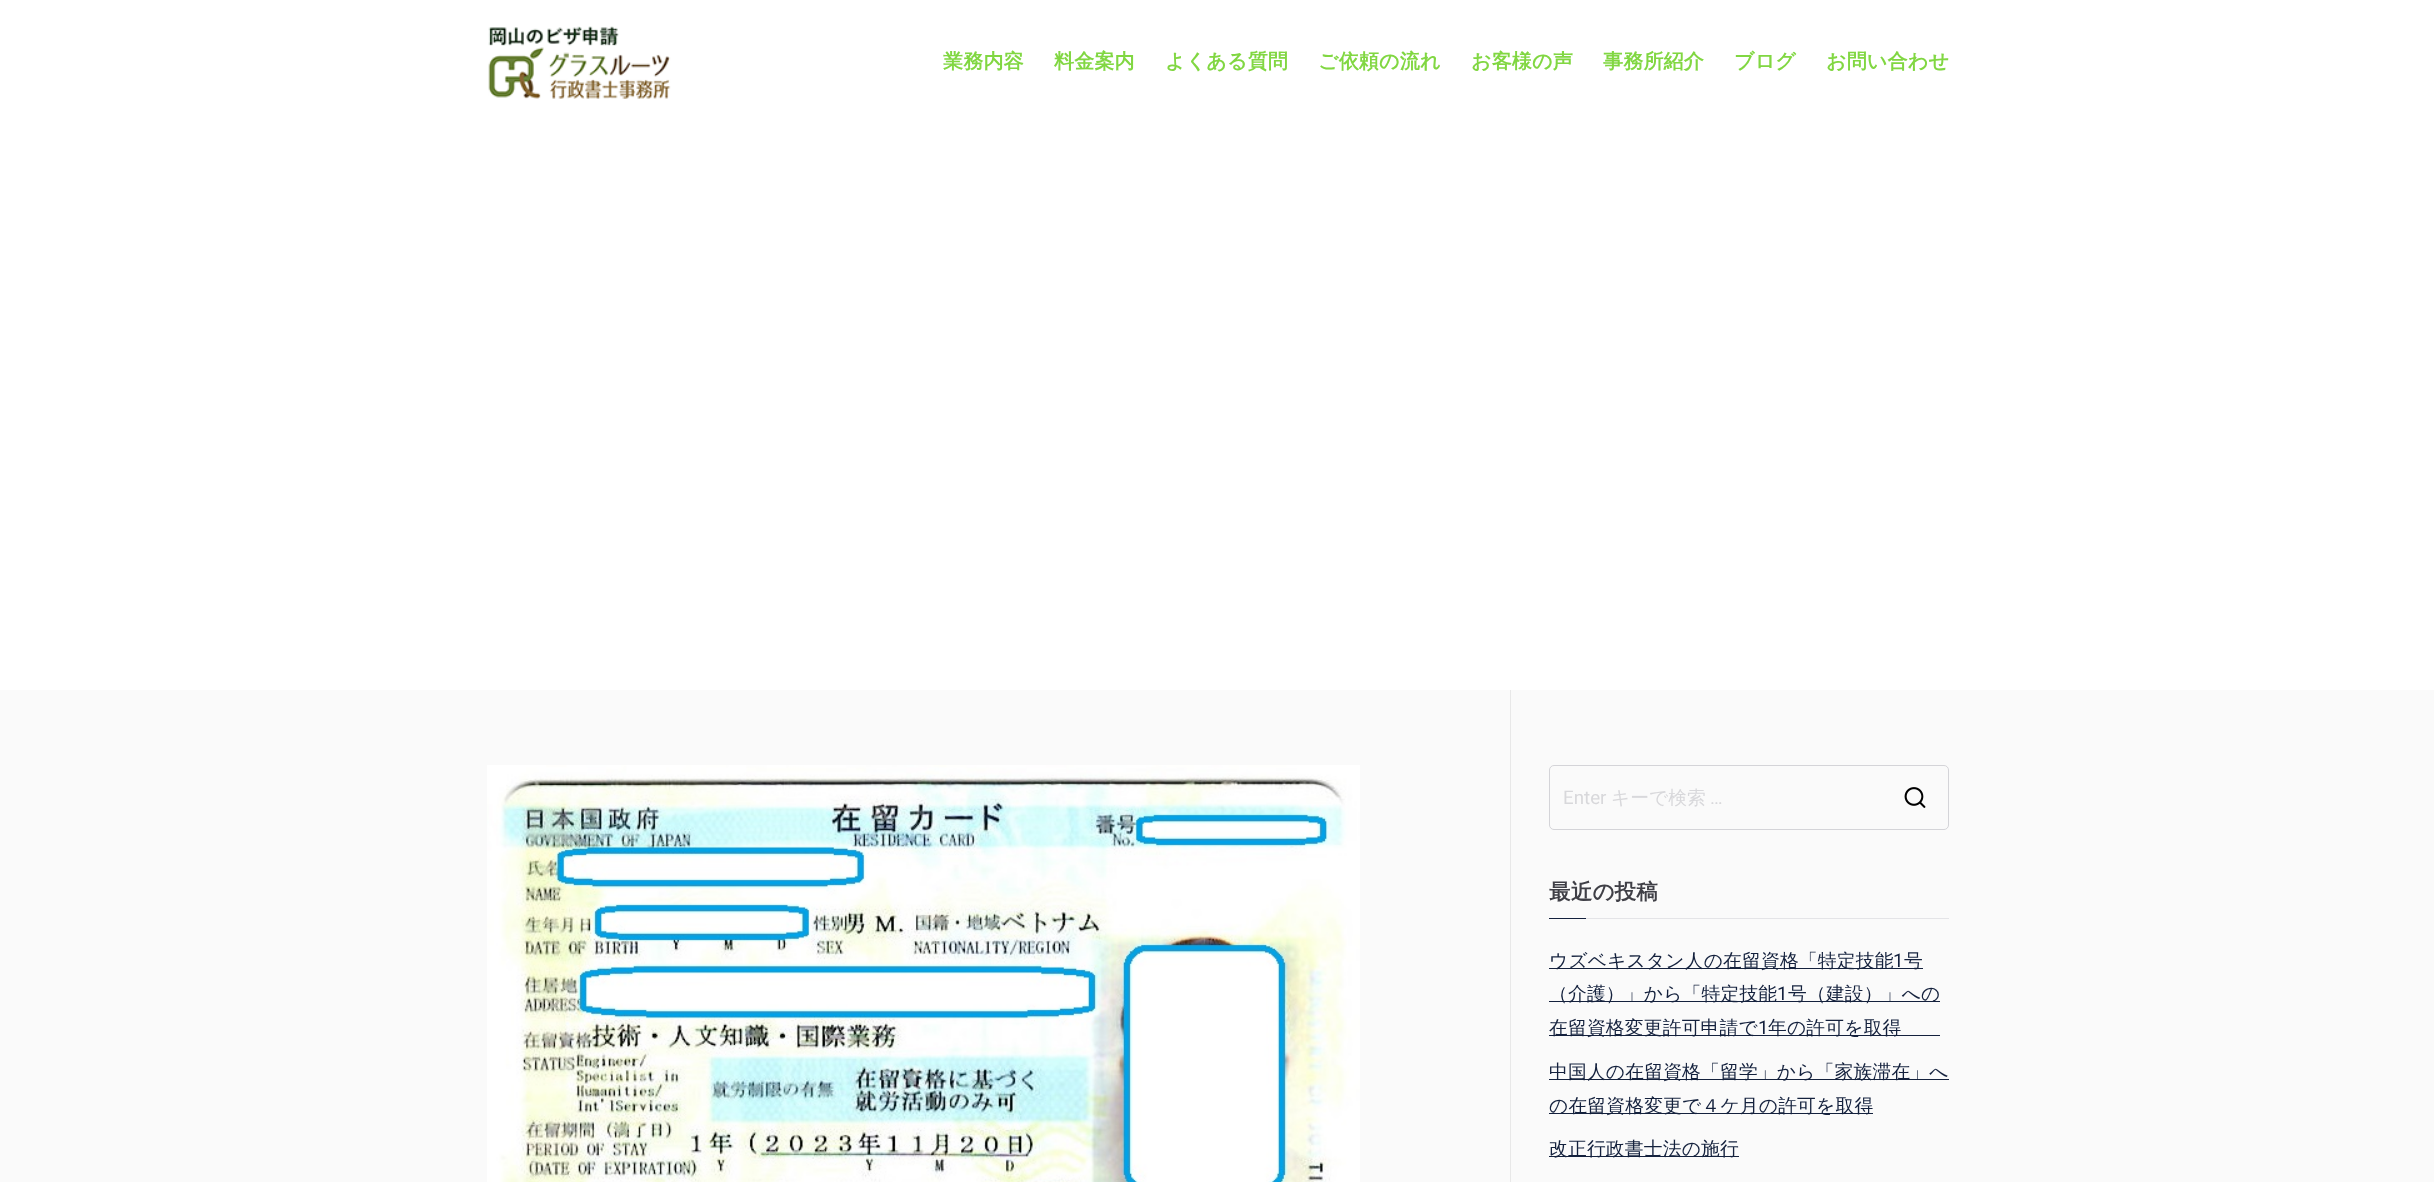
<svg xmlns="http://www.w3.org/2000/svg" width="2434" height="1182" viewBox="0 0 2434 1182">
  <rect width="100%" height="100%" fill="#fafafa"/>
  <rect x="0" y="0" width="2434" height="690" fill="#ffffff"/>
  <image x="488" y="26" width="183" height="73" href="img1.png"/>
  <text x="943" y="68" font-family="WenQuanYi Zen Hei" font-size="20" font-weight="bold" letter-spacing="0.2" fill="#81d742">業務内容</text>
  <text x="1054" y="68" font-family="WenQuanYi Zen Hei" font-size="20" font-weight="bold" letter-spacing="0.2" fill="#81d742">料金案内</text>
  <text x="1165" y="68" font-family="WenQuanYi Zen Hei" font-size="20" font-weight="bold" letter-spacing="0.2" fill="#81d742">よくある質問</text>
  <text x="1318" y="68" font-family="WenQuanYi Zen Hei" font-size="20" font-weight="bold" letter-spacing="0.2" fill="#81d742">ご依頼の流れ</text>
  <text x="1471" y="68" font-family="WenQuanYi Zen Hei" font-size="20" font-weight="bold" letter-spacing="0.2" fill="#81d742">お客様の声</text>
  <text x="1603" y="68" font-family="WenQuanYi Zen Hei" font-size="20" font-weight="bold" letter-spacing="0.2" fill="#81d742">事務所紹介</text>
  <text x="1734" y="68" font-family="WenQuanYi Zen Hei" font-size="20" font-weight="bold" letter-spacing="0.2" fill="#81d742">ブログ</text>
  <text x="1826" y="68" font-family="WenQuanYi Zen Hei" font-size="20" font-weight="bold" letter-spacing="0.2" fill="#81d742">お問い合わせ</text>
  <image x="487" y="765" width="873" height="417" href="img2.png"/>
  <rect x="1510" y="690" width="1" height="492" fill="#e8e8e8"/>
  <rect x="1549.5" y="765.5" width="399" height="64" rx="4.5" fill="none" stroke="#d4d4d8"/>
  <text x="1563" y="804" font-family="Roboto" font-size="18.75" fill="#d8d8db">Enter</text>
  <text x="1611" y="804" font-family="WenQuanYi Zen Hei" font-size="18.75" font-weight="500" fill="#d8d8db">キーで検索</text>
  <text x="1710" y="804" font-family="Roboto" font-size="18.75" fill="#d8d8db">…</text>
  <image x="1904" y="787" width="22" height="21" href="img3.png"/>
  <rect x="1586" y="918" width="363" height="1" fill="#e4e4e7"/>
  <text x="1549" y="899" font-family="WenQuanYi Zen Hei" font-size="21.5" font-weight="bold" letter-spacing="0.2" fill="#3f3f46">最近の投稿</text>
  <rect x="1549" y="918" width="37" height="1" fill="#14213d"/>
  <rect x="1549" y="968" width="374" height="1" fill="#14213d"/>
  <text x="1549" y="967" font-family="WenQuanYi Zen Hei" font-size="18.75" font-weight="500" letter-spacing="0.2" fill="#14213d">ウズベキスタン人の在留資格「特定技能</text>
  <text x="1893" y="967" font-family="Roboto" font-size="18.75" letter-spacing="0.2" fill="#14213d">1</text>
  <text x="1904" y="967" font-family="WenQuanYi Zen Hei" font-size="18.75" font-weight="500" letter-spacing="0.2" fill="#14213d">号</text>
  <rect x="1549" y="1001" width="391" height="1" fill="#14213d"/>
  <text x="1549" y="1000" font-family="WenQuanYi Zen Hei" font-size="18.75" font-weight="500" letter-spacing="0.2" fill="#14213d">（介護）」から「特定技能</text>
  <text x="1777" y="1000" font-family="Roboto" font-size="18.75" letter-spacing="0.2" fill="#14213d">1</text>
  <text x="1788" y="1000" font-family="WenQuanYi Zen Hei" font-size="18.75" font-weight="500" letter-spacing="0.2" fill="#14213d">号（建設）」への</text>
  <rect x="1549" y="1035" width="391" height="1" fill="#14213d"/>
  <text x="1549" y="1034" font-family="WenQuanYi Zen Hei" font-size="18.75" font-weight="500" letter-spacing="0.2" fill="#14213d">在留資格変更許可申請で</text>
  <text x="1758" y="1034" font-family="Roboto" font-size="18.75" letter-spacing="0.2" fill="#14213d">1</text>
  <text x="1768" y="1034" font-family="WenQuanYi Zen Hei" font-size="18.75" font-weight="500" letter-spacing="0.2" fill="#14213d">年の許可を取得</text>
  <rect x="1549" y="1079" width="400" height="1" fill="#14213d"/>
  <text x="1549" y="1078" font-family="WenQuanYi Zen Hei" font-size="18.75" font-weight="500" letter-spacing="0.2" fill="#14213d">中国人の在留資格「留学」から「家族滞在」へ</text>
  <rect x="1549" y="1113" width="324" height="1" fill="#14213d"/>
  <text x="1549" y="1112" font-family="WenQuanYi Zen Hei" font-size="18.75" font-weight="500" letter-spacing="0.2" fill="#14213d">の在留資格変更で４ケ月の許可を取得</text>
  <rect x="1549" y="1156" width="190" height="1" fill="#14213d"/>
  <text x="1549" y="1155" font-family="WenQuanYi Zen Hei" font-size="18.75" font-weight="500" letter-spacing="0.2" fill="#14213d">改正行政書士法の施行</text>
</svg>
